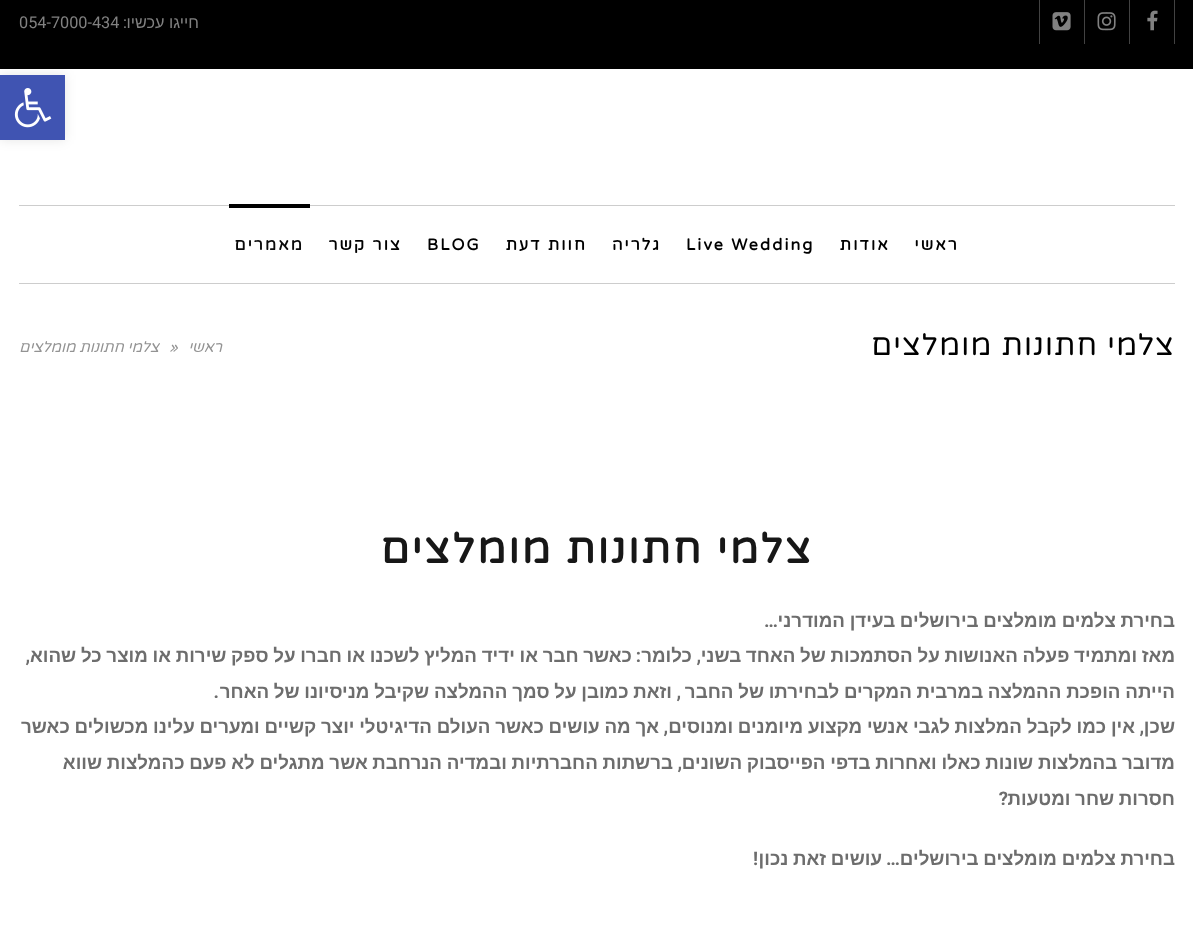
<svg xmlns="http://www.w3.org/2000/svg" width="1193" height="928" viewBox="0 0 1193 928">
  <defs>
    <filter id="blur1" x="-50%" y="-200%" width="200%" height="500%"><feGaussianBlur stdDeviation="6"/></filter>
  </defs>
  <rect width="100%" height="100%" fill="#ffffff"/>
  <rect x="0" y="0" width="1193" height="69" fill="#000000"/>
  <rect x="1174" y="0" width="1" height="44" fill="#424242"/>
  <rect x="1129" y="0" width="1" height="44" fill="#424242"/>
  <image x="1147" y="10" width="11" height="21" href="img1.png"/>
  <rect x="1084" y="0" width="1" height="44" fill="#424242"/>
  <image x="1097" y="12" width="19" height="19" href="img2.png"/>
  <rect x="1039" y="0" width="1" height="44" fill="#424242"/>
  <image x="1052" y="12" width="19" height="19" href="img3.png"/>
  <text x="199" y="28" font-family="Liberation Sans" font-size="16.25" direction="rtl" fill="#818181">חייגו עכשיו</text>
  <text x="127" y="28" font-family="Roboto" font-size="16.25" direction="rtl" fill="#818181">:</text>
  <text x="19" y="28" font-family="Roboto" font-size="16.25" fill="#818181">054-7000-434</text>
  <rect x="19" y="205" width="1156" height="1" fill="#cdcdcd"/>
  <rect x="19" y="283" width="1156" height="1" fill="#cdcdcd"/>
  <text x="959" y="250" font-family="Varela Round" font-size="16" font-weight="bold" letter-spacing="2.1" direction="rtl" fill="#000000">ראשי</text>
  <text x="890" y="250" font-family="Varela Round" font-size="16" font-weight="bold" letter-spacing="2.1" direction="rtl" fill="#000000">אודות</text>
  <text x="686" y="250" font-family="Varela Round" font-size="16" font-weight="bold" letter-spacing="2.1" fill="#000000">Live Wedding</text>
  <text x="661" y="250" font-family="Varela Round" font-size="16" font-weight="bold" letter-spacing="2.1" direction="rtl" fill="#000000">גלריה</text>
  <text x="587" y="250" font-family="Varela Round" font-size="16" font-weight="bold" letter-spacing="2.1" direction="rtl" fill="#000000">חוות דעת</text>
  <text x="427" y="250" font-family="Varela Round" font-size="16" font-weight="bold" letter-spacing="2.1" fill="#000000">BLOG</text>
  <text x="402" y="250" font-family="Varela Round" font-size="16" font-weight="bold" letter-spacing="2.1" direction="rtl" fill="#000000">צור קשר</text>
  <rect x="229" y="204" width="81" height="4" fill="#000000"/>
  <text x="304" y="250" font-family="Varela Round" font-size="16" font-weight="bold" letter-spacing="2.1" direction="rtl" fill="#0a0a0a">מאמרים</text>
  <text x="1175" y="355" font-family="Varela Round" font-size="30" letter-spacing="1.25" direction="rtl" fill="#000000">צלמי חתונות מומלצים</text>
  <text x="222" y="352" font-family="Varela Round" font-size="15" font-style="italic" direction="rtl" fill="#939393">ראשי</text>
  <text x="169" y="352" font-family="Varela Round" font-size="15" font-style="italic" fill="#939393">»</text>
  <text x="159" y="352" font-family="Varela Round" font-size="15" font-style="italic" direction="rtl" fill="#939393">צלמי חתונות מומלצים</text>
  <text x="813" y="563" font-family="Varela Round" font-size="41.25" font-weight="bold" letter-spacing="2.5" direction="rtl" fill="#171717">צלמי חתונות מומלצים</text>
  <text x="1175" y="627" word-spacing="-0.5" font-family="Liberation Sans" font-size="18.75" font-weight="bold" direction="rtl" fill="#6d6d6d">בחירת צלמים מומלצים בירושלים בעידן המודרני</text>
  <text x="778" y="627" font-family="Roboto" font-size="18.75" font-weight="bold" direction="rtl" fill="#6d6d6d">…</text>
  <text x="1175" y="662" word-spacing="-0.5" font-family="Liberation Sans" font-size="18.75" font-weight="bold" direction="rtl" fill="#6d6d6d">מאז ומתמיד פעלה האנושות על הסתמכות של האחד בשני</text>
  <text x="692" y="662" font-family="Liberation Sans" font-size="18.75" font-weight="bold" direction="rtl" fill="#6d6d6d">כלומר</text>
  <text x="632" y="662" word-spacing="-0.5" font-family="Liberation Sans" font-size="18.75" font-weight="bold" direction="rtl" fill="#6d6d6d">כאשר חבר או ידיד המליץ לשכנו או חברו על ספק שירות או מוצר כל שהוא</text>
  <text x="701" y="662" font-family="Roboto" font-size="18.75" font-weight="bold" direction="rtl" fill="#6d6d6d">,</text>
  <text x="641" y="662" font-family="Roboto" font-size="18.75" font-weight="bold" direction="rtl" fill="#6d6d6d">:</text>
  <text x="30" y="662" font-family="Roboto" font-size="18.75" font-weight="bold" direction="rtl" fill="#6d6d6d">,</text>
  <text x="1175" y="698" word-spacing="-0.5" font-family="Liberation Sans" font-size="18.75" font-weight="bold" direction="rtl" fill="#6d6d6d">הייתה הופכת ההמלצה במרבית המקרים לבחירתו של החבר</text>
  <text x="681" y="698" font-family="Roboto" font-size="18.75" font-weight="bold" direction="rtl" fill="#6d6d6d">,</text>
  <text x="672" y="698" word-spacing="-0.5" font-family="Liberation Sans" font-size="18.75" font-weight="bold" direction="rtl" fill="#6d6d6d">וזאת כמובן על סמך ההמלצה שקיבל מניסיונו של האחר</text>
  <text x="219" y="698" font-family="Roboto" font-size="18.75" font-weight="bold" direction="rtl" fill="#6d6d6d">.</text>
  <text x="1175" y="733" font-family="Liberation Sans" font-size="18.75" font-weight="bold" direction="rtl" fill="#6d6d6d">שכן</text>
  <text x="1144" y="733" font-family="Roboto" font-size="18.75" font-weight="bold" direction="rtl" fill="#6d6d6d">,</text>
  <text x="1135" y="733" word-spacing="-0.5" font-family="Liberation Sans" font-size="18.75" font-weight="bold" direction="rtl" fill="#6d6d6d">אין כמו לקבל המלצות לגבי אנשי מקצוע מיומנים ומנוסים</text>
  <text x="659" y="733" word-spacing="-0.5" font-family="Liberation Sans" font-size="18.75" font-weight="bold" direction="rtl" fill="#6d6d6d">אך מה עושים כאשר העולם הדיגיטלי יוצר קשיים ומערים עלינו מכשולים כאשר</text>
  <text x="668" y="733" font-family="Roboto" font-size="18.75" font-weight="bold" direction="rtl" fill="#6d6d6d">,</text>
  <text x="1175" y="769" word-spacing="-0.5" font-family="Liberation Sans" font-size="18.75" font-weight="bold" direction="rtl" fill="#6d6d6d">מדובר בהמלצות שונות כאלו ואחרות בדפי הפייסבוק השונים</text>
  <text x="673" y="769" word-spacing="-0.5" font-family="Liberation Sans" font-size="18.75" font-weight="bold" direction="rtl" fill="#6d6d6d">ברשתות החברתיות ובמדיה הנרחבת אשר מתגלים לא פעם כהמלצות שווא</text>
  <text x="682" y="769" font-family="Roboto" font-size="18.75" font-weight="bold" direction="rtl" fill="#6d6d6d">,</text>
  <text x="1175" y="805" word-spacing="-0.5" font-family="Liberation Sans" font-size="18.75" font-weight="bold" direction="rtl" fill="#6d6d6d">חסרות שחר ומטעות</text>
  <text x="1008" y="805" font-family="Roboto" font-size="18.75" font-weight="bold" direction="rtl" fill="#6d6d6d">?</text>
  <text x="1175" y="865" word-spacing="-0.5" font-family="Liberation Sans" font-size="18.75" font-weight="bold" direction="rtl" fill="#6d6d6d">בחירת צלמים מומלצים בירושלים</text>
  <text x="900" y="865" font-family="Roboto" font-size="18.75" font-weight="bold" direction="rtl" fill="#6d6d6d">…</text>
  <text x="882" y="865" word-spacing="-0.5" font-family="Liberation Sans" font-size="18.75" font-weight="bold" direction="rtl" fill="#6d6d6d">עושים זאת נכון</text>
  <text x="758" y="865" font-family="Roboto" font-size="18.75" font-weight="bold" direction="rtl" fill="#6d6d6d">!</text>
  <rect x="0" y="75" width="65" height="65" fill="#000000" fill-opacity="0.1" filter="url(#blur1)"/>
  <rect x="0" y="75" width="65" height="65" fill="#4054b2"/>
  <image x="14" y="88" width="38" height="40" href="img4.png"/>
</svg>
